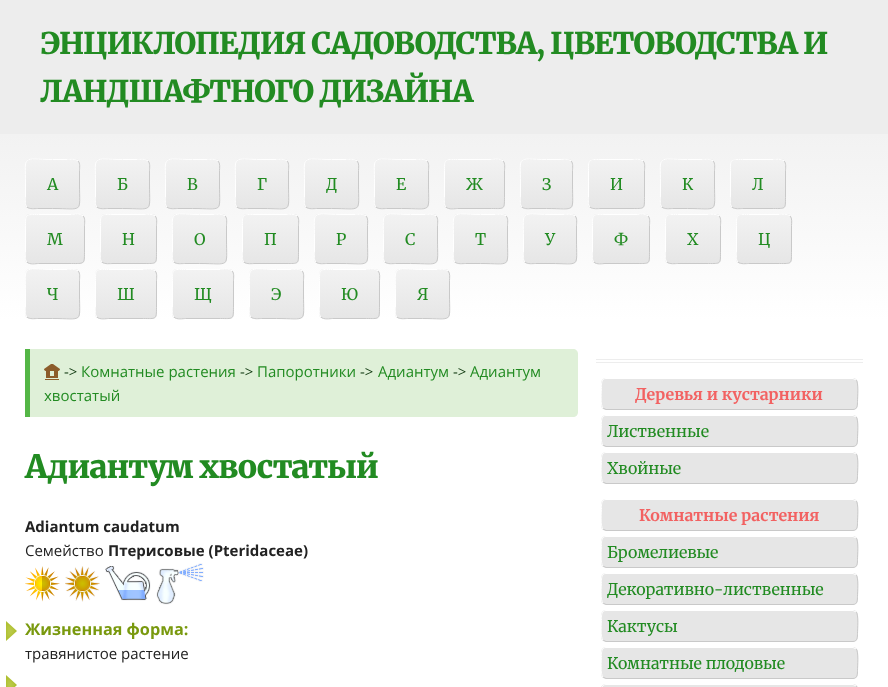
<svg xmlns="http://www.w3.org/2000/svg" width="888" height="687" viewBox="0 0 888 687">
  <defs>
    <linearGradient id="g1" gradientUnits="userSpaceOnUse" x1="444" y1="134" x2="444" y2="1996"><stop offset="0" stop-color="#f2f2f2"/><stop offset="0.1" stop-color="#ffffff"/></linearGradient>
    <clipPath id="clip1"><rect x="25" y="159" width="55" height="50" rx="5"/></clipPath>
    <linearGradient id="g2" gradientUnits="userSpaceOnUse" x1="53" y1="112" x2="53" y2="160"><stop offset="0" stop-color="#f2f2f2"/><stop offset="1" stop-color="#e6e6e6"/></linearGradient>
    <linearGradient id="g3" gradientUnits="userSpaceOnUse" x1="53" y1="160" x2="53" y2="208"><stop offset="0" stop-color="#f2f2f2"/><stop offset="1" stop-color="#e6e6e6"/></linearGradient>
    <linearGradient id="g4" gradientUnits="userSpaceOnUse" x1="53" y1="208" x2="53" y2="256"><stop offset="0" stop-color="#f2f2f2"/><stop offset="1" stop-color="#e6e6e6"/></linearGradient>
    <clipPath id="clip2"><rect x="95" y="159" width="55" height="50" rx="5"/></clipPath>
    <linearGradient id="g5" gradientUnits="userSpaceOnUse" x1="123" y1="112" x2="123" y2="160"><stop offset="0" stop-color="#f2f2f2"/><stop offset="1" stop-color="#e6e6e6"/></linearGradient>
    <linearGradient id="g6" gradientUnits="userSpaceOnUse" x1="123" y1="160" x2="123" y2="208"><stop offset="0" stop-color="#f2f2f2"/><stop offset="1" stop-color="#e6e6e6"/></linearGradient>
    <linearGradient id="g7" gradientUnits="userSpaceOnUse" x1="123" y1="208" x2="123" y2="256"><stop offset="0" stop-color="#f2f2f2"/><stop offset="1" stop-color="#e6e6e6"/></linearGradient>
    <clipPath id="clip3"><rect x="165" y="159" width="55" height="50" rx="5"/></clipPath>
    <linearGradient id="g8" gradientUnits="userSpaceOnUse" x1="193" y1="112" x2="193" y2="160"><stop offset="0" stop-color="#f2f2f2"/><stop offset="1" stop-color="#e6e6e6"/></linearGradient>
    <linearGradient id="g9" gradientUnits="userSpaceOnUse" x1="193" y1="160" x2="193" y2="208"><stop offset="0" stop-color="#f2f2f2"/><stop offset="1" stop-color="#e6e6e6"/></linearGradient>
    <linearGradient id="g10" gradientUnits="userSpaceOnUse" x1="193" y1="208" x2="193" y2="256"><stop offset="0" stop-color="#f2f2f2"/><stop offset="1" stop-color="#e6e6e6"/></linearGradient>
    <clipPath id="clip4"><rect x="235" y="159" width="54" height="50" rx="5"/></clipPath>
    <linearGradient id="g11" gradientUnits="userSpaceOnUse" x1="262" y1="112" x2="262" y2="160"><stop offset="0" stop-color="#f2f2f2"/><stop offset="1" stop-color="#e6e6e6"/></linearGradient>
    <linearGradient id="g12" gradientUnits="userSpaceOnUse" x1="262" y1="160" x2="262" y2="208"><stop offset="0" stop-color="#f2f2f2"/><stop offset="1" stop-color="#e6e6e6"/></linearGradient>
    <linearGradient id="g13" gradientUnits="userSpaceOnUse" x1="262" y1="208" x2="262" y2="256"><stop offset="0" stop-color="#f2f2f2"/><stop offset="1" stop-color="#e6e6e6"/></linearGradient>
    <clipPath id="clip5"><rect x="304" y="159" width="55" height="50" rx="5"/></clipPath>
    <linearGradient id="g14" gradientUnits="userSpaceOnUse" x1="332" y1="112" x2="332" y2="160"><stop offset="0" stop-color="#f2f2f2"/><stop offset="1" stop-color="#e6e6e6"/></linearGradient>
    <linearGradient id="g15" gradientUnits="userSpaceOnUse" x1="332" y1="160" x2="332" y2="208"><stop offset="0" stop-color="#f2f2f2"/><stop offset="1" stop-color="#e6e6e6"/></linearGradient>
    <linearGradient id="g16" gradientUnits="userSpaceOnUse" x1="332" y1="208" x2="332" y2="256"><stop offset="0" stop-color="#f2f2f2"/><stop offset="1" stop-color="#e6e6e6"/></linearGradient>
    <clipPath id="clip6"><rect x="374" y="159" width="55" height="50" rx="5"/></clipPath>
    <linearGradient id="g17" gradientUnits="userSpaceOnUse" x1="402" y1="112" x2="402" y2="160"><stop offset="0" stop-color="#f2f2f2"/><stop offset="1" stop-color="#e6e6e6"/></linearGradient>
    <linearGradient id="g18" gradientUnits="userSpaceOnUse" x1="402" y1="160" x2="402" y2="208"><stop offset="0" stop-color="#f2f2f2"/><stop offset="1" stop-color="#e6e6e6"/></linearGradient>
    <linearGradient id="g19" gradientUnits="userSpaceOnUse" x1="402" y1="208" x2="402" y2="256"><stop offset="0" stop-color="#f2f2f2"/><stop offset="1" stop-color="#e6e6e6"/></linearGradient>
    <clipPath id="clip7"><rect x="444" y="159" width="61" height="50" rx="5"/></clipPath>
    <linearGradient id="g20" gradientUnits="userSpaceOnUse" x1="475" y1="112" x2="475" y2="160"><stop offset="0" stop-color="#f2f2f2"/><stop offset="1" stop-color="#e6e6e6"/></linearGradient>
    <linearGradient id="g21" gradientUnits="userSpaceOnUse" x1="475" y1="160" x2="475" y2="208"><stop offset="0" stop-color="#f2f2f2"/><stop offset="1" stop-color="#e6e6e6"/></linearGradient>
    <linearGradient id="g22" gradientUnits="userSpaceOnUse" x1="475" y1="208" x2="475" y2="256"><stop offset="0" stop-color="#f2f2f2"/><stop offset="1" stop-color="#e6e6e6"/></linearGradient>
    <clipPath id="clip8"><rect x="520" y="159" width="53" height="50" rx="5"/></clipPath>
    <linearGradient id="g23" gradientUnits="userSpaceOnUse" x1="547" y1="112" x2="547" y2="160"><stop offset="0" stop-color="#f2f2f2"/><stop offset="1" stop-color="#e6e6e6"/></linearGradient>
    <linearGradient id="g24" gradientUnits="userSpaceOnUse" x1="547" y1="160" x2="547" y2="208"><stop offset="0" stop-color="#f2f2f2"/><stop offset="1" stop-color="#e6e6e6"/></linearGradient>
    <linearGradient id="g25" gradientUnits="userSpaceOnUse" x1="547" y1="208" x2="547" y2="256"><stop offset="0" stop-color="#f2f2f2"/><stop offset="1" stop-color="#e6e6e6"/></linearGradient>
    <clipPath id="clip9"><rect x="588" y="159" width="57" height="50" rx="5"/></clipPath>
    <linearGradient id="g26" gradientUnits="userSpaceOnUse" x1="617" y1="112" x2="617" y2="160"><stop offset="0" stop-color="#f2f2f2"/><stop offset="1" stop-color="#e6e6e6"/></linearGradient>
    <linearGradient id="g27" gradientUnits="userSpaceOnUse" x1="617" y1="160" x2="617" y2="208"><stop offset="0" stop-color="#f2f2f2"/><stop offset="1" stop-color="#e6e6e6"/></linearGradient>
    <linearGradient id="g28" gradientUnits="userSpaceOnUse" x1="617" y1="208" x2="617" y2="256"><stop offset="0" stop-color="#f2f2f2"/><stop offset="1" stop-color="#e6e6e6"/></linearGradient>
    <clipPath id="clip10"><rect x="660" y="159" width="55" height="50" rx="5"/></clipPath>
    <linearGradient id="g29" gradientUnits="userSpaceOnUse" x1="688" y1="112" x2="688" y2="160"><stop offset="0" stop-color="#f2f2f2"/><stop offset="1" stop-color="#e6e6e6"/></linearGradient>
    <linearGradient id="g30" gradientUnits="userSpaceOnUse" x1="688" y1="160" x2="688" y2="208"><stop offset="0" stop-color="#f2f2f2"/><stop offset="1" stop-color="#e6e6e6"/></linearGradient>
    <linearGradient id="g31" gradientUnits="userSpaceOnUse" x1="688" y1="208" x2="688" y2="256"><stop offset="0" stop-color="#f2f2f2"/><stop offset="1" stop-color="#e6e6e6"/></linearGradient>
    <clipPath id="clip11"><rect x="730" y="159" width="56" height="50" rx="5"/></clipPath>
    <linearGradient id="g32" gradientUnits="userSpaceOnUse" x1="758" y1="112" x2="758" y2="160"><stop offset="0" stop-color="#f2f2f2"/><stop offset="1" stop-color="#e6e6e6"/></linearGradient>
    <linearGradient id="g33" gradientUnits="userSpaceOnUse" x1="758" y1="160" x2="758" y2="208"><stop offset="0" stop-color="#f2f2f2"/><stop offset="1" stop-color="#e6e6e6"/></linearGradient>
    <linearGradient id="g34" gradientUnits="userSpaceOnUse" x1="758" y1="208" x2="758" y2="256"><stop offset="0" stop-color="#f2f2f2"/><stop offset="1" stop-color="#e6e6e6"/></linearGradient>
    <clipPath id="clip12"><rect x="25" y="214" width="60" height="50" rx="5"/></clipPath>
    <linearGradient id="g35" gradientUnits="userSpaceOnUse" x1="55" y1="167" x2="55" y2="215"><stop offset="0" stop-color="#f2f2f2"/><stop offset="1" stop-color="#e6e6e6"/></linearGradient>
    <linearGradient id="g36" gradientUnits="userSpaceOnUse" x1="55" y1="215" x2="55" y2="263"><stop offset="0" stop-color="#f2f2f2"/><stop offset="1" stop-color="#e6e6e6"/></linearGradient>
    <linearGradient id="g37" gradientUnits="userSpaceOnUse" x1="55" y1="263" x2="55" y2="311"><stop offset="0" stop-color="#f2f2f2"/><stop offset="1" stop-color="#e6e6e6"/></linearGradient>
    <clipPath id="clip13"><rect x="100" y="214" width="57" height="50" rx="5"/></clipPath>
    <linearGradient id="g38" gradientUnits="userSpaceOnUse" x1="129" y1="167" x2="129" y2="215"><stop offset="0" stop-color="#f2f2f2"/><stop offset="1" stop-color="#e6e6e6"/></linearGradient>
    <linearGradient id="g39" gradientUnits="userSpaceOnUse" x1="129" y1="215" x2="129" y2="263"><stop offset="0" stop-color="#f2f2f2"/><stop offset="1" stop-color="#e6e6e6"/></linearGradient>
    <linearGradient id="g40" gradientUnits="userSpaceOnUse" x1="129" y1="263" x2="129" y2="311"><stop offset="0" stop-color="#f2f2f2"/><stop offset="1" stop-color="#e6e6e6"/></linearGradient>
    <clipPath id="clip14"><rect x="172" y="214" width="55" height="50" rx="5"/></clipPath>
    <linearGradient id="g41" gradientUnits="userSpaceOnUse" x1="200" y1="167" x2="200" y2="215"><stop offset="0" stop-color="#f2f2f2"/><stop offset="1" stop-color="#e6e6e6"/></linearGradient>
    <linearGradient id="g42" gradientUnits="userSpaceOnUse" x1="200" y1="215" x2="200" y2="263"><stop offset="0" stop-color="#f2f2f2"/><stop offset="1" stop-color="#e6e6e6"/></linearGradient>
    <linearGradient id="g43" gradientUnits="userSpaceOnUse" x1="200" y1="263" x2="200" y2="311"><stop offset="0" stop-color="#f2f2f2"/><stop offset="1" stop-color="#e6e6e6"/></linearGradient>
    <clipPath id="clip15"><rect x="242" y="214" width="57" height="50" rx="5"/></clipPath>
    <linearGradient id="g44" gradientUnits="userSpaceOnUse" x1="271" y1="167" x2="271" y2="215"><stop offset="0" stop-color="#f2f2f2"/><stop offset="1" stop-color="#e6e6e6"/></linearGradient>
    <linearGradient id="g45" gradientUnits="userSpaceOnUse" x1="271" y1="215" x2="271" y2="263"><stop offset="0" stop-color="#f2f2f2"/><stop offset="1" stop-color="#e6e6e6"/></linearGradient>
    <linearGradient id="g46" gradientUnits="userSpaceOnUse" x1="271" y1="263" x2="271" y2="311"><stop offset="0" stop-color="#f2f2f2"/><stop offset="1" stop-color="#e6e6e6"/></linearGradient>
    <clipPath id="clip16"><rect x="314" y="214" width="54" height="50" rx="5"/></clipPath>
    <linearGradient id="g47" gradientUnits="userSpaceOnUse" x1="341" y1="167" x2="341" y2="215"><stop offset="0" stop-color="#f2f2f2"/><stop offset="1" stop-color="#e6e6e6"/></linearGradient>
    <linearGradient id="g48" gradientUnits="userSpaceOnUse" x1="341" y1="215" x2="341" y2="263"><stop offset="0" stop-color="#f2f2f2"/><stop offset="1" stop-color="#e6e6e6"/></linearGradient>
    <linearGradient id="g49" gradientUnits="userSpaceOnUse" x1="341" y1="263" x2="341" y2="311"><stop offset="0" stop-color="#f2f2f2"/><stop offset="1" stop-color="#e6e6e6"/></linearGradient>
    <clipPath id="clip17"><rect x="383" y="214" width="55" height="50" rx="5"/></clipPath>
    <linearGradient id="g50" gradientUnits="userSpaceOnUse" x1="411" y1="167" x2="411" y2="215"><stop offset="0" stop-color="#f2f2f2"/><stop offset="1" stop-color="#e6e6e6"/></linearGradient>
    <linearGradient id="g51" gradientUnits="userSpaceOnUse" x1="411" y1="215" x2="411" y2="263"><stop offset="0" stop-color="#f2f2f2"/><stop offset="1" stop-color="#e6e6e6"/></linearGradient>
    <linearGradient id="g52" gradientUnits="userSpaceOnUse" x1="411" y1="263" x2="411" y2="311"><stop offset="0" stop-color="#f2f2f2"/><stop offset="1" stop-color="#e6e6e6"/></linearGradient>
    <clipPath id="clip18"><rect x="453" y="214" width="55" height="50" rx="5"/></clipPath>
    <linearGradient id="g53" gradientUnits="userSpaceOnUse" x1="481" y1="167" x2="481" y2="215"><stop offset="0" stop-color="#f2f2f2"/><stop offset="1" stop-color="#e6e6e6"/></linearGradient>
    <linearGradient id="g54" gradientUnits="userSpaceOnUse" x1="481" y1="215" x2="481" y2="263"><stop offset="0" stop-color="#f2f2f2"/><stop offset="1" stop-color="#e6e6e6"/></linearGradient>
    <linearGradient id="g55" gradientUnits="userSpaceOnUse" x1="481" y1="263" x2="481" y2="311"><stop offset="0" stop-color="#f2f2f2"/><stop offset="1" stop-color="#e6e6e6"/></linearGradient>
    <clipPath id="clip19"><rect x="523" y="214" width="54" height="50" rx="5"/></clipPath>
    <linearGradient id="g56" gradientUnits="userSpaceOnUse" x1="550" y1="167" x2="550" y2="215"><stop offset="0" stop-color="#f2f2f2"/><stop offset="1" stop-color="#e6e6e6"/></linearGradient>
    <linearGradient id="g57" gradientUnits="userSpaceOnUse" x1="550" y1="215" x2="550" y2="263"><stop offset="0" stop-color="#f2f2f2"/><stop offset="1" stop-color="#e6e6e6"/></linearGradient>
    <linearGradient id="g58" gradientUnits="userSpaceOnUse" x1="550" y1="263" x2="550" y2="311"><stop offset="0" stop-color="#f2f2f2"/><stop offset="1" stop-color="#e6e6e6"/></linearGradient>
    <clipPath id="clip20"><rect x="592" y="214" width="58" height="50" rx="5"/></clipPath>
    <linearGradient id="g59" gradientUnits="userSpaceOnUse" x1="621" y1="167" x2="621" y2="215"><stop offset="0" stop-color="#f2f2f2"/><stop offset="1" stop-color="#e6e6e6"/></linearGradient>
    <linearGradient id="g60" gradientUnits="userSpaceOnUse" x1="621" y1="215" x2="621" y2="263"><stop offset="0" stop-color="#f2f2f2"/><stop offset="1" stop-color="#e6e6e6"/></linearGradient>
    <linearGradient id="g61" gradientUnits="userSpaceOnUse" x1="621" y1="263" x2="621" y2="311"><stop offset="0" stop-color="#f2f2f2"/><stop offset="1" stop-color="#e6e6e6"/></linearGradient>
    <clipPath id="clip21"><rect x="665" y="214" width="56" height="50" rx="5"/></clipPath>
    <linearGradient id="g62" gradientUnits="userSpaceOnUse" x1="693" y1="167" x2="693" y2="215"><stop offset="0" stop-color="#f2f2f2"/><stop offset="1" stop-color="#e6e6e6"/></linearGradient>
    <linearGradient id="g63" gradientUnits="userSpaceOnUse" x1="693" y1="215" x2="693" y2="263"><stop offset="0" stop-color="#f2f2f2"/><stop offset="1" stop-color="#e6e6e6"/></linearGradient>
    <linearGradient id="g64" gradientUnits="userSpaceOnUse" x1="693" y1="263" x2="693" y2="311"><stop offset="0" stop-color="#f2f2f2"/><stop offset="1" stop-color="#e6e6e6"/></linearGradient>
    <clipPath id="clip22"><rect x="736" y="214" width="56" height="50" rx="5"/></clipPath>
    <linearGradient id="g65" gradientUnits="userSpaceOnUse" x1="764" y1="167" x2="764" y2="215"><stop offset="0" stop-color="#f2f2f2"/><stop offset="1" stop-color="#e6e6e6"/></linearGradient>
    <linearGradient id="g66" gradientUnits="userSpaceOnUse" x1="764" y1="215" x2="764" y2="263"><stop offset="0" stop-color="#f2f2f2"/><stop offset="1" stop-color="#e6e6e6"/></linearGradient>
    <linearGradient id="g67" gradientUnits="userSpaceOnUse" x1="764" y1="263" x2="764" y2="311"><stop offset="0" stop-color="#f2f2f2"/><stop offset="1" stop-color="#e6e6e6"/></linearGradient>
    <clipPath id="clip23"><rect x="25" y="269" width="55" height="50" rx="5"/></clipPath>
    <linearGradient id="g68" gradientUnits="userSpaceOnUse" x1="53" y1="222" x2="53" y2="270"><stop offset="0" stop-color="#f2f2f2"/><stop offset="1" stop-color="#e6e6e6"/></linearGradient>
    <linearGradient id="g69" gradientUnits="userSpaceOnUse" x1="53" y1="270" x2="53" y2="318"><stop offset="0" stop-color="#f2f2f2"/><stop offset="1" stop-color="#e6e6e6"/></linearGradient>
    <linearGradient id="g70" gradientUnits="userSpaceOnUse" x1="53" y1="318" x2="53" y2="366"><stop offset="0" stop-color="#f2f2f2"/><stop offset="1" stop-color="#e6e6e6"/></linearGradient>
    <clipPath id="clip24"><rect x="95" y="269" width="62" height="50" rx="5"/></clipPath>
    <linearGradient id="g71" gradientUnits="userSpaceOnUse" x1="126" y1="222" x2="126" y2="270"><stop offset="0" stop-color="#f2f2f2"/><stop offset="1" stop-color="#e6e6e6"/></linearGradient>
    <linearGradient id="g72" gradientUnits="userSpaceOnUse" x1="126" y1="270" x2="126" y2="318"><stop offset="0" stop-color="#f2f2f2"/><stop offset="1" stop-color="#e6e6e6"/></linearGradient>
    <linearGradient id="g73" gradientUnits="userSpaceOnUse" x1="126" y1="318" x2="126" y2="366"><stop offset="0" stop-color="#f2f2f2"/><stop offset="1" stop-color="#e6e6e6"/></linearGradient>
    <clipPath id="clip25"><rect x="172" y="269" width="62" height="50" rx="5"/></clipPath>
    <linearGradient id="g74" gradientUnits="userSpaceOnUse" x1="203" y1="222" x2="203" y2="270"><stop offset="0" stop-color="#f2f2f2"/><stop offset="1" stop-color="#e6e6e6"/></linearGradient>
    <linearGradient id="g75" gradientUnits="userSpaceOnUse" x1="203" y1="270" x2="203" y2="318"><stop offset="0" stop-color="#f2f2f2"/><stop offset="1" stop-color="#e6e6e6"/></linearGradient>
    <linearGradient id="g76" gradientUnits="userSpaceOnUse" x1="203" y1="318" x2="203" y2="366"><stop offset="0" stop-color="#f2f2f2"/><stop offset="1" stop-color="#e6e6e6"/></linearGradient>
    <clipPath id="clip26"><rect x="249" y="269" width="55" height="50" rx="5"/></clipPath>
    <linearGradient id="g77" gradientUnits="userSpaceOnUse" x1="277" y1="222" x2="277" y2="270"><stop offset="0" stop-color="#f2f2f2"/><stop offset="1" stop-color="#e6e6e6"/></linearGradient>
    <linearGradient id="g78" gradientUnits="userSpaceOnUse" x1="277" y1="270" x2="277" y2="318"><stop offset="0" stop-color="#f2f2f2"/><stop offset="1" stop-color="#e6e6e6"/></linearGradient>
    <linearGradient id="g79" gradientUnits="userSpaceOnUse" x1="277" y1="318" x2="277" y2="366"><stop offset="0" stop-color="#f2f2f2"/><stop offset="1" stop-color="#e6e6e6"/></linearGradient>
    <clipPath id="clip27"><rect x="319" y="269" width="61" height="50" rx="5"/></clipPath>
    <linearGradient id="g80" gradientUnits="userSpaceOnUse" x1="350" y1="222" x2="350" y2="270"><stop offset="0" stop-color="#f2f2f2"/><stop offset="1" stop-color="#e6e6e6"/></linearGradient>
    <linearGradient id="g81" gradientUnits="userSpaceOnUse" x1="350" y1="270" x2="350" y2="318"><stop offset="0" stop-color="#f2f2f2"/><stop offset="1" stop-color="#e6e6e6"/></linearGradient>
    <linearGradient id="g82" gradientUnits="userSpaceOnUse" x1="350" y1="318" x2="350" y2="366"><stop offset="0" stop-color="#f2f2f2"/><stop offset="1" stop-color="#e6e6e6"/></linearGradient>
    <clipPath id="clip28"><rect x="395" y="269" width="55" height="50" rx="5"/></clipPath>
    <linearGradient id="g83" gradientUnits="userSpaceOnUse" x1="423" y1="222" x2="423" y2="270"><stop offset="0" stop-color="#f2f2f2"/><stop offset="1" stop-color="#e6e6e6"/></linearGradient>
    <linearGradient id="g84" gradientUnits="userSpaceOnUse" x1="423" y1="270" x2="423" y2="318"><stop offset="0" stop-color="#f2f2f2"/><stop offset="1" stop-color="#e6e6e6"/></linearGradient>
    <linearGradient id="g85" gradientUnits="userSpaceOnUse" x1="423" y1="318" x2="423" y2="366"><stop offset="0" stop-color="#f2f2f2"/><stop offset="1" stop-color="#e6e6e6"/></linearGradient>
  </defs>
  <rect width="100%" height="100%" fill="#ededed"/>
  <text x="40" y="54" font-family="Merriweather" font-size="30" font-weight="900" letter-spacing="-1" fill="#228b22">ЭНЦИКЛОПЕДИЯ САДОВОДСТВА, ЦВЕТОВОДСТВА И</text>
  <text x="40" y="102" font-family="Merriweather" font-size="30" font-weight="900" letter-spacing="-1" fill="#228b22">ЛАНДШАФТНОГО ДИЗАЙНА</text>
  <rect x="0" y="134" width="888" height="553" fill="url(#g1)"/>
  <g clip-path="url(#clip1)">
    <rect x="25" y="159" width="55" height="1" fill="url(#g2)"/>
    <rect x="25" y="160" width="55" height="48" fill="url(#g3)"/>
    <rect x="25" y="208" width="55" height="1" fill="url(#g4)"/>
  </g>
  <path d="M78 161C80.5 163 79.5 168.5 79.5 170.5V184C79.5 214 84 208.5 52.5 208.5H37.5C35 208.5 29.5 209.5 27 207" fill="none" stroke="#c9c9c9"/>
  <path d="M27 207C24.5 205 25.5 199.5 25.5 197.5V184C25.5 154 21 159.5 52.5 159.5H67.5C70 159.5 75.5 158.5 78 161" fill="none" stroke="#ffffff"/>
  <text x="47" y="190" font-family="Merriweather" font-size="16" fill="#228b22">А</text>
  <g clip-path="url(#clip2)">
    <rect x="95" y="159" width="55" height="1" fill="url(#g5)"/>
    <rect x="95" y="160" width="55" height="48" fill="url(#g6)"/>
    <rect x="95" y="208" width="55" height="1" fill="url(#g7)"/>
  </g>
  <path d="M148 161C150.5 163 149.5 168.5 149.5 170.5V184C149.5 214 154 208.5 122.5 208.5H107.5C105 208.5 99.5 209.5 97 207" fill="none" stroke="#c9c9c9"/>
  <path d="M97 207C94.5 205 95.5 199.5 95.5 197.5V184C95.5 154 91 159.5 122.5 159.5H137.5C140 159.5 145.5 158.5 148 161" fill="none" stroke="#ffffff"/>
  <text x="117" y="190" font-family="Merriweather" font-size="16" fill="#228b22">Б</text>
  <g clip-path="url(#clip3)">
    <rect x="165" y="159" width="55" height="1" fill="url(#g8)"/>
    <rect x="165" y="160" width="55" height="48" fill="url(#g9)"/>
    <rect x="165" y="208" width="55" height="1" fill="url(#g10)"/>
  </g>
  <path d="M218 161C220.5 163 219.5 168.5 219.5 170.5V184C219.5 214 224 208.5 192.5 208.5H177.5C175 208.5 169.5 209.5 167 207" fill="none" stroke="#c9c9c9"/>
  <path d="M167 207C164.5 205 165.5 199.5 165.5 197.5V184C165.5 154 161 159.5 192.5 159.5H207.5C210 159.5 215.5 158.5 218 161" fill="none" stroke="#ffffff"/>
  <text x="187" y="190" font-family="Merriweather" font-size="16" fill="#228b22">В</text>
  <g clip-path="url(#clip4)">
    <rect x="235" y="159" width="54" height="1" fill="url(#g11)"/>
    <rect x="235" y="160" width="54" height="48" fill="url(#g12)"/>
    <rect x="235" y="208" width="54" height="1" fill="url(#g13)"/>
  </g>
  <path d="M287 161C289.5 163 288.5 168.5 288.5 170.5V184C288.5 214 293 208.5 262 208.5H247.5C245 208.5 239.5 209.5 237 207" fill="none" stroke="#c9c9c9"/>
  <path d="M237 207C234.5 205 235.5 199.5 235.5 197.5V184C235.5 154 231 159.5 262 159.5H276.5C279 159.5 284.5 158.5 287 161" fill="none" stroke="#ffffff"/>
  <text x="257" y="190" font-family="Merriweather" font-size="16" fill="#228b22">Г</text>
  <g clip-path="url(#clip5)">
    <rect x="304" y="159" width="55" height="1" fill="url(#g14)"/>
    <rect x="304" y="160" width="55" height="48" fill="url(#g15)"/>
    <rect x="304" y="208" width="55" height="1" fill="url(#g16)"/>
  </g>
  <path d="M357 161C359.5 163 358.5 168.5 358.5 170.5V184C358.5 214 363 208.5 331.5 208.5H316.5C314 208.5 308.5 209.5 306 207" fill="none" stroke="#c9c9c9"/>
  <path d="M306 207C303.5 205 304.5 199.5 304.5 197.5V184C304.5 154 300 159.5 331.5 159.5H346.5C349 159.5 354.5 158.5 357 161" fill="none" stroke="#ffffff"/>
  <text x="326" y="190" font-family="Merriweather" font-size="16" fill="#228b22">Д</text>
  <g clip-path="url(#clip6)">
    <rect x="374" y="159" width="55" height="1" fill="url(#g17)"/>
    <rect x="374" y="160" width="55" height="48" fill="url(#g18)"/>
    <rect x="374" y="208" width="55" height="1" fill="url(#g19)"/>
  </g>
  <path d="M427 161C429.5 163 428.5 168.5 428.5 170.5V184C428.5 214 433 208.5 401.5 208.5H386.5C384 208.5 378.5 209.5 376 207" fill="none" stroke="#c9c9c9"/>
  <path d="M376 207C373.5 205 374.5 199.5 374.5 197.5V184C374.5 154 370 159.5 401.5 159.5H416.5C419 159.5 424.5 158.5 427 161" fill="none" stroke="#ffffff"/>
  <text x="396" y="190" font-family="Merriweather" font-size="16" fill="#228b22">Е</text>
  <g clip-path="url(#clip7)">
    <rect x="444" y="159" width="61" height="1" fill="url(#g20)"/>
    <rect x="444" y="160" width="61" height="48" fill="url(#g21)"/>
    <rect x="444" y="208" width="61" height="1" fill="url(#g22)"/>
  </g>
  <path d="M503 161C505.5 163 504.5 168.5 504.5 170.5V197.5C504.5 210 504 208.5 491.5 208.5H457.5C455.5 208.5 448.5 210 446 207" fill="none" stroke="#c9c9c9"/>
  <path d="M446 207C443.5 205 444.5 199.5 444.5 197.5V170.5C444.5 158 445 159.5 457.5 159.5H491.5C493.5 159.5 500.5 158 503 161" fill="none" stroke="#ffffff"/>
  <text x="466" y="190" font-family="Merriweather" font-size="16" fill="#228b22">Ж</text>
  <g clip-path="url(#clip8)">
    <rect x="520" y="159" width="53" height="1" fill="url(#g23)"/>
    <rect x="520" y="160" width="53" height="48" fill="url(#g24)"/>
    <rect x="520" y="208" width="53" height="1" fill="url(#g25)"/>
  </g>
  <path d="M571 161C573.5 163 572.5 168.5 572.5 170.5V184C572.5 214 577 208.5 546.5 208.5H532C530 208.5 524.5 209.5 522 207" fill="none" stroke="#c9c9c9"/>
  <path d="M522 207C519.5 205 520.5 199.5 520.5 197.5V184C520.5 154 516 159.5 546.5 159.5H561C563 159.5 568.5 158.5 571 161" fill="none" stroke="#ffffff"/>
  <text x="542" y="190" font-family="Merriweather" font-size="16" fill="#228b22">З</text>
  <g clip-path="url(#clip9)">
    <rect x="588" y="159" width="57" height="1" fill="url(#g26)"/>
    <rect x="588" y="160" width="57" height="48" fill="url(#g27)"/>
    <rect x="588" y="208" width="57" height="1" fill="url(#g28)"/>
  </g>
  <path d="M643 161C645.5 163 644.5 168.5 644.5 170.5V197.5C644.5 209.5 644.5 208.5 632 208.5H601C598.5 208.5 592.5 209.5 590 207" fill="none" stroke="#c9c9c9"/>
  <path d="M590 207C587.5 205 588.5 199.5 588.5 197.5V170.5C588.5 158.5 588.5 159.5 601 159.5H632C634.5 159.5 640.5 158.5 643 161" fill="none" stroke="#ffffff"/>
  <text x="610" y="190" font-family="Merriweather" font-size="16" fill="#228b22">И</text>
  <g clip-path="url(#clip10)">
    <rect x="660" y="159" width="55" height="1" fill="url(#g29)"/>
    <rect x="660" y="160" width="55" height="48" fill="url(#g30)"/>
    <rect x="660" y="208" width="55" height="1" fill="url(#g31)"/>
  </g>
  <path d="M713 161C715.5 163 714.5 168.5 714.5 170.5V184C714.5 214 719 208.5 687.5 208.5H672.5C670 208.5 664.5 209.5 662 207" fill="none" stroke="#c9c9c9"/>
  <path d="M662 207C659.5 205 660.5 199.5 660.5 197.5V184C660.5 154 656 159.5 687.5 159.5H702.5C705 159.5 710.5 158.5 713 161" fill="none" stroke="#ffffff"/>
  <text x="682" y="190" font-family="Merriweather" font-size="16" fill="#228b22">К</text>
  <g clip-path="url(#clip11)">
    <rect x="730" y="159" width="56" height="1" fill="url(#g32)"/>
    <rect x="730" y="160" width="56" height="48" fill="url(#g33)"/>
    <rect x="730" y="208" width="56" height="1" fill="url(#g34)"/>
  </g>
  <path d="M784 161C786.5 163 785.5 168.5 785.5 170.5V197.5C785.5 209.5 785.5 208.5 773.5 208.5H742.5C740.5 208.5 734.5 209.5 732 207" fill="none" stroke="#c9c9c9"/>
  <path d="M732 207C729.5 205 730.5 199.5 730.5 197.5V170.5C730.5 158.5 730.5 159.5 742.5 159.5H773.5C775.5 159.5 781.5 158.5 784 161" fill="none" stroke="#ffffff"/>
  <text x="752" y="190" font-family="Merriweather" font-size="16" fill="#228b22">Л</text>
  <g clip-path="url(#clip12)">
    <rect x="25" y="214" width="60" height="1" fill="url(#g35)"/>
    <rect x="25" y="215" width="60" height="48" fill="url(#g36)"/>
    <rect x="25" y="263" width="60" height="1" fill="url(#g37)"/>
  </g>
  <path d="M83 216C85.5 218 84.5 223.5 84.5 225.5V252.5C84.5 264.5 84 263.5 71.5 263.5H38.5C36 263.5 29.5 265 27 262" fill="none" stroke="#c9c9c9"/>
  <path d="M27 262C24.5 260 25.5 254.5 25.5 252.5V225.5C25.5 213.5 26 214.5 38.5 214.5H71.5C74 214.5 80.5 213 83 216" fill="none" stroke="#ffffff"/>
  <text x="47" y="245" font-family="Merriweather" font-size="16" fill="#228b22">М</text>
  <g clip-path="url(#clip13)">
    <rect x="100" y="214" width="57" height="1" fill="url(#g38)"/>
    <rect x="100" y="215" width="57" height="48" fill="url(#g39)"/>
    <rect x="100" y="263" width="57" height="1" fill="url(#g40)"/>
  </g>
  <path d="M155 216C157.5 218 156.5 223.5 156.5 225.5V252.5C156.5 264.5 156.5 263.5 144 263.5H113C110.5 263.5 104.5 264.5 102 262" fill="none" stroke="#c9c9c9"/>
  <path d="M102 262C99.5 260 100.5 254.5 100.5 252.5V225.5C100.5 213.5 100.5 214.5 113 214.5H144C146.5 214.5 152.5 213.5 155 216" fill="none" stroke="#ffffff"/>
  <text x="122" y="245" font-family="Merriweather" font-size="16" fill="#228b22">Н</text>
  <g clip-path="url(#clip14)">
    <rect x="172" y="214" width="55" height="1" fill="url(#g41)"/>
    <rect x="172" y="215" width="55" height="48" fill="url(#g42)"/>
    <rect x="172" y="263" width="55" height="1" fill="url(#g43)"/>
  </g>
  <path d="M225 216C227.5 218 226.5 223.5 226.5 225.5V239C226.5 269 231 263.5 199.5 263.5H184.5C182 263.5 176.5 264.5 174 262" fill="none" stroke="#c9c9c9"/>
  <path d="M174 262C171.5 260 172.5 254.5 172.5 252.5V239C172.5 209 168 214.5 199.5 214.5H214.5C217 214.5 222.5 213.5 225 216" fill="none" stroke="#ffffff"/>
  <text x="194" y="245" font-family="Merriweather" font-size="16" fill="#228b22">О</text>
  <g clip-path="url(#clip15)">
    <rect x="242" y="214" width="57" height="1" fill="url(#g44)"/>
    <rect x="242" y="215" width="57" height="48" fill="url(#g45)"/>
    <rect x="242" y="263" width="57" height="1" fill="url(#g46)"/>
  </g>
  <path d="M297 216C299.5 218 298.5 223.5 298.5 225.5V252.5C298.5 264.5 298.5 263.5 286 263.5H255C252.5 263.5 246.5 264.5 244 262" fill="none" stroke="#c9c9c9"/>
  <path d="M244 262C241.5 260 242.5 254.5 242.5 252.5V225.5C242.5 213.5 242.5 214.5 255 214.5H286C288.5 214.5 294.5 213.5 297 216" fill="none" stroke="#ffffff"/>
  <text x="264" y="245" font-family="Merriweather" font-size="16" fill="#228b22">П</text>
  <g clip-path="url(#clip16)">
    <rect x="314" y="214" width="54" height="1" fill="url(#g47)"/>
    <rect x="314" y="215" width="54" height="48" fill="url(#g48)"/>
    <rect x="314" y="263" width="54" height="1" fill="url(#g49)"/>
  </g>
  <path d="M366 216C368.5 218 367.5 223.5 367.5 225.5V239C367.5 269 372 263.5 341 263.5H326.5C324 263.5 318.5 264.5 316 262" fill="none" stroke="#c9c9c9"/>
  <path d="M316 262C313.5 260 314.5 254.5 314.5 252.5V239C314.5 209 310 214.5 341 214.5H355.5C358 214.5 363.5 213.5 366 216" fill="none" stroke="#ffffff"/>
  <text x="336" y="245" font-family="Merriweather" font-size="16" fill="#228b22">Р</text>
  <g clip-path="url(#clip17)">
    <rect x="383" y="214" width="55" height="1" fill="url(#g50)"/>
    <rect x="383" y="215" width="55" height="48" fill="url(#g51)"/>
    <rect x="383" y="263" width="55" height="1" fill="url(#g52)"/>
  </g>
  <path d="M436 216C438.5 218 437.5 223.5 437.5 225.5V239C437.5 269 442 263.5 410.5 263.5H395.5C393 263.5 387.5 264.5 385 262" fill="none" stroke="#c9c9c9"/>
  <path d="M385 262C382.5 260 383.5 254.5 383.5 252.5V239C383.5 209 379 214.5 410.5 214.5H425.5C428 214.5 433.5 213.5 436 216" fill="none" stroke="#ffffff"/>
  <text x="405" y="245" font-family="Merriweather" font-size="16" fill="#228b22">С</text>
  <g clip-path="url(#clip18)">
    <rect x="453" y="214" width="55" height="1" fill="url(#g53)"/>
    <rect x="453" y="215" width="55" height="48" fill="url(#g54)"/>
    <rect x="453" y="263" width="55" height="1" fill="url(#g55)"/>
  </g>
  <path d="M506 216C508.5 218 507.5 223.5 507.5 225.5V239C507.5 269 512 263.5 480.5 263.5H465.5C463 263.5 457.5 264.5 455 262" fill="none" stroke="#c9c9c9"/>
  <path d="M455 262C452.5 260 453.5 254.5 453.5 252.5V239C453.5 209 449 214.5 480.5 214.5H495.5C498 214.5 503.5 213.5 506 216" fill="none" stroke="#ffffff"/>
  <text x="475" y="245" font-family="Merriweather" font-size="16" fill="#228b22">Т</text>
  <g clip-path="url(#clip19)">
    <rect x="523" y="214" width="54" height="1" fill="url(#g56)"/>
    <rect x="523" y="215" width="54" height="48" fill="url(#g57)"/>
    <rect x="523" y="263" width="54" height="1" fill="url(#g58)"/>
  </g>
  <path d="M575 216C577.5 218 576.5 223.5 576.5 225.5V239C576.5 269 581 263.5 550 263.5H535.5C533 263.5 527.5 264.5 525 262" fill="none" stroke="#c9c9c9"/>
  <path d="M525 262C522.5 260 523.5 254.5 523.5 252.5V239C523.5 209 519 214.5 550 214.5H564.5C567 214.5 572.5 213.5 575 216" fill="none" stroke="#ffffff"/>
  <text x="545" y="245" font-family="Merriweather" font-size="16" fill="#228b22">У</text>
  <g clip-path="url(#clip20)">
    <rect x="592" y="214" width="58" height="1" fill="url(#g59)"/>
    <rect x="592" y="215" width="58" height="48" fill="url(#g60)"/>
    <rect x="592" y="263" width="58" height="1" fill="url(#g61)"/>
  </g>
  <path d="M648 216C650.5 218 649.5 223.5 649.5 225.5V252.5C649.5 264.5 649.5 263.5 637 263.5H605C603 263.5 596.5 265 594 262" fill="none" stroke="#c9c9c9"/>
  <path d="M594 262C591.5 260 592.5 254.5 592.5 252.5V225.5C592.5 213.5 592.5 214.5 605 214.5H637C639 214.5 645.5 213 648 216" fill="none" stroke="#ffffff"/>
  <text x="614" y="245" font-family="Merriweather" font-size="16" fill="#228b22">Ф</text>
  <g clip-path="url(#clip21)">
    <rect x="665" y="214" width="56" height="1" fill="url(#g62)"/>
    <rect x="665" y="215" width="56" height="48" fill="url(#g63)"/>
    <rect x="665" y="263" width="56" height="1" fill="url(#g64)"/>
  </g>
  <path d="M719 216C721.5 218 720.5 223.5 720.5 225.5V252.5C720.5 264.5 720.5 263.5 708.5 263.5H677.5C675.5 263.5 669.5 264.5 667 262" fill="none" stroke="#c9c9c9"/>
  <path d="M667 262C664.5 260 665.5 254.5 665.5 252.5V225.5C665.5 213.5 665.5 214.5 677.5 214.5H708.5C710.5 214.5 716.5 213.5 719 216" fill="none" stroke="#ffffff"/>
  <text x="687" y="245" font-family="Merriweather" font-size="16" fill="#228b22">Х</text>
  <g clip-path="url(#clip22)">
    <rect x="736" y="214" width="56" height="1" fill="url(#g65)"/>
    <rect x="736" y="215" width="56" height="48" fill="url(#g66)"/>
    <rect x="736" y="263" width="56" height="1" fill="url(#g67)"/>
  </g>
  <path d="M790 216C792.5 218 791.5 223.5 791.5 225.5V252.5C791.5 264.5 791.5 263.5 779.5 263.5H748.5C746.5 263.5 740.5 264.5 738 262" fill="none" stroke="#c9c9c9"/>
  <path d="M738 262C735.5 260 736.5 254.5 736.5 252.5V225.5C736.5 213.5 736.5 214.5 748.5 214.5H779.5C781.5 214.5 787.5 213.5 790 216" fill="none" stroke="#ffffff"/>
  <text x="758" y="245" font-family="Merriweather" font-size="16" fill="#228b22">Ц</text>
  <g clip-path="url(#clip23)">
    <rect x="25" y="269" width="55" height="1" fill="url(#g68)"/>
    <rect x="25" y="270" width="55" height="48" fill="url(#g69)"/>
    <rect x="25" y="318" width="55" height="1" fill="url(#g70)"/>
  </g>
  <path d="M78 271C80.5 273 79.5 278.5 79.5 280.5V294C79.5 324 84 318.5 52.5 318.5H37.5C35 318.5 29.5 319.5 27 317" fill="none" stroke="#c9c9c9"/>
  <path d="M27 317C24.5 315 25.5 309.5 25.5 307.5V294C25.5 264 21 269.5 52.5 269.5H67.5C70 269.5 75.5 268.5 78 271" fill="none" stroke="#ffffff"/>
  <text x="47" y="300" font-family="Merriweather" font-size="16" fill="#228b22">Ч</text>
  <g clip-path="url(#clip24)">
    <rect x="95" y="269" width="62" height="1" fill="url(#g71)"/>
    <rect x="95" y="270" width="62" height="48" fill="url(#g72)"/>
    <rect x="95" y="318" width="62" height="1" fill="url(#g73)"/>
  </g>
  <path d="M155 271C157.5 273 156.5 278.5 156.5 280.5V307.5C156.5 320 156 318.5 143.5 318.5H108.5C106.5 318.5 99.5 320 97 317" fill="none" stroke="#c9c9c9"/>
  <path d="M97 317C94.5 315 95.5 309.5 95.5 307.5V280.5C95.5 268 96 269.5 108.5 269.5H143.5C145.5 269.5 152.5 268 155 271" fill="none" stroke="#ffffff"/>
  <text x="117" y="300" font-family="Merriweather" font-size="16" fill="#228b22">Ш</text>
  <g clip-path="url(#clip25)">
    <rect x="172" y="269" width="62" height="1" fill="url(#g74)"/>
    <rect x="172" y="270" width="62" height="48" fill="url(#g75)"/>
    <rect x="172" y="318" width="62" height="1" fill="url(#g76)"/>
  </g>
  <path d="M232 271C234.5 273 233.5 278.5 233.5 280.5V307.5C233.5 320 233 318.5 220.5 318.5H185.5C183.5 318.5 176.5 320 174 317" fill="none" stroke="#c9c9c9"/>
  <path d="M174 317C171.5 315 172.5 309.5 172.5 307.5V280.5C172.5 268 173 269.5 185.5 269.5H220.5C222.5 269.5 229.5 268 232 271" fill="none" stroke="#ffffff"/>
  <text x="194" y="300" font-family="Merriweather" font-size="16" fill="#228b22">Щ</text>
  <g clip-path="url(#clip26)">
    <rect x="249" y="269" width="55" height="1" fill="url(#g77)"/>
    <rect x="249" y="270" width="55" height="48" fill="url(#g78)"/>
    <rect x="249" y="318" width="55" height="1" fill="url(#g79)"/>
  </g>
  <path d="M302 271C304.5 273 303.5 278.5 303.5 280.5V294C303.5 324 308 318.5 276.5 318.5H261.5C259 318.5 253.5 319.5 251 317" fill="none" stroke="#c9c9c9"/>
  <path d="M251 317C248.5 315 249.5 309.5 249.5 307.5V294C249.5 264 245 269.5 276.5 269.5H291.5C294 269.5 299.5 268.5 302 271" fill="none" stroke="#ffffff"/>
  <text x="271" y="300" font-family="Merriweather" font-size="16" fill="#228b22">Э</text>
  <g clip-path="url(#clip27)">
    <rect x="319" y="269" width="61" height="1" fill="url(#g80)"/>
    <rect x="319" y="270" width="61" height="48" fill="url(#g81)"/>
    <rect x="319" y="318" width="61" height="1" fill="url(#g82)"/>
  </g>
  <path d="M378 271C380.5 273 379.5 278.5 379.5 280.5V307.5C379.5 320 379 318.5 366.5 318.5H332.5C330.5 318.5 323.5 320 321 317" fill="none" stroke="#c9c9c9"/>
  <path d="M321 317C318.5 315 319.5 309.5 319.5 307.5V280.5C319.5 268 320 269.5 332.5 269.5H366.5C368.5 269.5 375.5 268 378 271" fill="none" stroke="#ffffff"/>
  <text x="341" y="300" font-family="Merriweather" font-size="16" fill="#228b22">Ю</text>
  <g clip-path="url(#clip28)">
    <rect x="395" y="269" width="55" height="1" fill="url(#g83)"/>
    <rect x="395" y="270" width="55" height="48" fill="url(#g84)"/>
    <rect x="395" y="318" width="55" height="1" fill="url(#g85)"/>
  </g>
  <path d="M448 271C450.5 273 449.5 278.5 449.5 280.5V294C449.5 324 454 318.5 422.5 318.5H407.5C405 318.5 399.5 319.5 397 317" fill="none" stroke="#c9c9c9"/>
  <path d="M397 317C394.5 315 395.5 309.5 395.5 307.5V294C395.5 264 391 269.5 422.5 269.5H437.5C440 269.5 445.5 268.5 448 271" fill="none" stroke="#ffffff"/>
  <text x="417" y="300" font-family="Merriweather" font-size="16" fill="#228b22">Я</text>
  <path d="M25 349H573C576 349 578 351 578 354V412C578 415 576 417 573 417H25Z" fill="#dff0d8"/>
  <rect x="25" y="349" width="5" height="68" fill="#54b646"/>
  <image x="44" y="364" width="16" height="16" href="img1.png"/>
  <text x="64" y="377" font-family="Open Sans" font-size="15" fill="#0d370d">-&gt;</text>
  <text x="81" y="377" font-family="Open Sans" font-size="15" fill="#228b22">Комнатные растения</text>
  <text x="240" y="377" font-family="Open Sans" font-size="15" fill="#0d370d">-&gt;</text>
  <text x="257" y="377" font-family="Open Sans" font-size="15" fill="#228b22">Папоротники</text>
  <text x="360" y="377" font-family="Open Sans" font-size="15" fill="#0d370d">-&gt;</text>
  <text x="378" y="377" font-family="Open Sans" font-size="15" fill="#228b22">Адиантум</text>
  <text x="453" y="377" font-family="Open Sans" font-size="15" fill="#0d370d">-&gt;</text>
  <text x="470" y="377" font-family="Open Sans" font-size="15" fill="#228b22">Адиантум</text>
  <text x="44" y="401" font-family="Open Sans" font-size="15" fill="#228b22">хвостатый</text>
  <text x="25" y="478" font-family="Merriweather" font-size="32" font-weight="900" letter-spacing="-1" fill="#228b22">Адиантум хвостатый</text>
  <text x="25" y="532" font-family="Open Sans" font-size="15" font-weight="bold" fill="#222222">Adiantum caudatum</text>
  <text x="25" y="556" font-family="Open Sans" font-size="15" fill="#222222">Семейство</text>
  <text x="108" y="556" font-family="Open Sans" font-size="15" font-weight="bold" fill="#222222">Птерисовые (Pteridaceae)</text>
  <image x="25" y="566" width="35" height="36" href="img2.png"/>
  <image x="65" y="566" width="35" height="36" href="img3.png"/>
  <image x="105" y="566" width="46" height="35" href="img4.png"/>
  <image x="156" y="563" width="48" height="42" href="img5.png"/>
  <image x="6" y="621" width="11" height="20" href="img6.png"/>
  <text x="25" y="635" font-family="Open Sans" font-size="16.25" font-weight="bold" fill="#79990e">Жизненная форма:</text>
  <text x="25" y="659" font-family="Open Sans" font-size="15" fill="#222222">травянистое растение</text>
  <image x="6" y="675" width="11" height="12" href="img7.png"/>
  <rect x="596" y="359" width="267" height="1" fill="#ededed"/>
  <rect x="596" y="362" width="267" height="1" fill="#ededed"/>
  <rect x="601" y="378" width="257" height="32" rx="5" fill="#e6e6e6"/>
  <path d="M856 380C859 382.5 857.5 397.5 857.5 401.5C857.5 404.5 857.5 409.5 853 409.5H606L603 408" fill="none" stroke="#c9c9c9"/>
  <path d="M603 408C600 405.5 601.5 390.5 601.5 386.5C601.5 383.5 601.5 378.5 606 378.5H853L856 380" fill="none" stroke="#ffffff"/>
  <text x="635" y="400" font-family="Merriweather" font-size="16" font-weight="bold" fill="#f26262">Деревья и кустарники</text>
  <rect x="601" y="415" width="257" height="32" rx="5" fill="#e6e6e6"/>
  <path d="M856 417C859 419.5 857.5 434.5 857.5 438.5C857.5 441.5 857.5 446.5 853 446.5H606L603 445" fill="none" stroke="#c9c9c9"/>
  <path d="M603 445C600 442.5 601.5 427.5 601.5 423.5C601.5 420.5 601.5 415.5 606 415.5H853L856 417" fill="none" stroke="#ffffff"/>
  <text x="607" y="437" font-family="Merriweather" font-size="16" fill="#228b22">Лиственные</text>
  <rect x="601" y="452" width="257" height="32" rx="5" fill="#e6e6e6"/>
  <path d="M856 454C859 456.5 857.5 471.5 857.5 475.5C857.5 478.5 857.5 483.5 853 483.5H606L603 482" fill="none" stroke="#c9c9c9"/>
  <path d="M603 482C600 479.5 601.5 464.5 601.5 460.5C601.5 457.5 601.5 452.5 606 452.5H853L856 454" fill="none" stroke="#ffffff"/>
  <text x="607" y="474" font-family="Merriweather" font-size="16" fill="#228b22">Хвойные</text>
  <rect x="601" y="499" width="257" height="32" rx="5" fill="#e6e6e6"/>
  <path d="M856 501C859 503.5 857.5 518.5 857.5 522.5C857.5 525.5 857.5 530.5 853 530.5H606L603 529" fill="none" stroke="#c9c9c9"/>
  <path d="M603 529C600 526.5 601.5 511.5 601.5 507.5C601.5 504.5 601.5 499.5 606 499.5H853L856 501" fill="none" stroke="#ffffff"/>
  <text x="639" y="521" font-family="Merriweather" font-size="16" font-weight="bold" fill="#f26262">Комнатные растения</text>
  <rect x="601" y="536" width="257" height="32" rx="5" fill="#e6e6e6"/>
  <path d="M856 538C859 540.5 857.5 555.5 857.5 559.5C857.5 562.5 857.5 567.5 853 567.5H606L603 566" fill="none" stroke="#c9c9c9"/>
  <path d="M603 566C600 563.5 601.5 548.5 601.5 544.5C601.5 541.5 601.5 536.5 606 536.5H853L856 538" fill="none" stroke="#ffffff"/>
  <text x="607" y="558" font-family="Merriweather" font-size="16" fill="#228b22">Бромелиевые</text>
  <rect x="601" y="573" width="257" height="32" rx="5" fill="#e6e6e6"/>
  <path d="M856 575C859 577.5 857.5 592.5 857.5 596.5C857.5 599.5 857.5 604.5 853 604.5H606L603 603" fill="none" stroke="#c9c9c9"/>
  <path d="M603 603C600 600.5 601.5 585.5 601.5 581.5C601.5 578.5 601.5 573.5 606 573.5H853L856 575" fill="none" stroke="#ffffff"/>
  <text x="607" y="595" font-family="Merriweather" font-size="16" fill="#228b22">Декоративно-лиственные</text>
  <rect x="601" y="610" width="257" height="32" rx="5" fill="#e6e6e6"/>
  <path d="M856 612C859 614.5 857.5 629.5 857.5 633.5C857.5 636.5 857.5 641.5 853 641.5H606L603 640" fill="none" stroke="#c9c9c9"/>
  <path d="M603 640C600 637.5 601.5 622.5 601.5 618.5C601.5 615.5 601.5 610.5 606 610.5H853L856 612" fill="none" stroke="#ffffff"/>
  <text x="607" y="632" font-family="Merriweather" font-size="16" fill="#228b22">Кактусы</text>
  <rect x="601" y="647" width="257" height="32" rx="5" fill="#e6e6e6"/>
  <path d="M856 649C859 651.5 857.5 666.5 857.5 670.5C857.5 673.5 857.5 678.5 853 678.5H606L603 677" fill="none" stroke="#c9c9c9"/>
  <path d="M603 677C600 674.5 601.5 659.5 601.5 655.5C601.5 652.5 601.5 647.5 606 647.5H853L856 649" fill="none" stroke="#ffffff"/>
  <text x="607" y="669" font-family="Merriweather" font-size="16" fill="#228b22">Комнатные плодовые</text>
  <rect x="601" y="684" width="257" height="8" rx="5" fill="#e6e6e6"/>
  <path d="M856 686C859 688.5 857.5 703.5 857.5 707.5C857.5 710.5 857.5 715.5 853 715.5H606L603 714" fill="none" stroke="#c9c9c9"/>
  <path d="M603 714C600 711.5 601.5 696.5 601.5 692.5C601.5 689.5 601.5 684.5 606 684.5H853L856 686" fill="none" stroke="#ffffff"/>
</svg>
